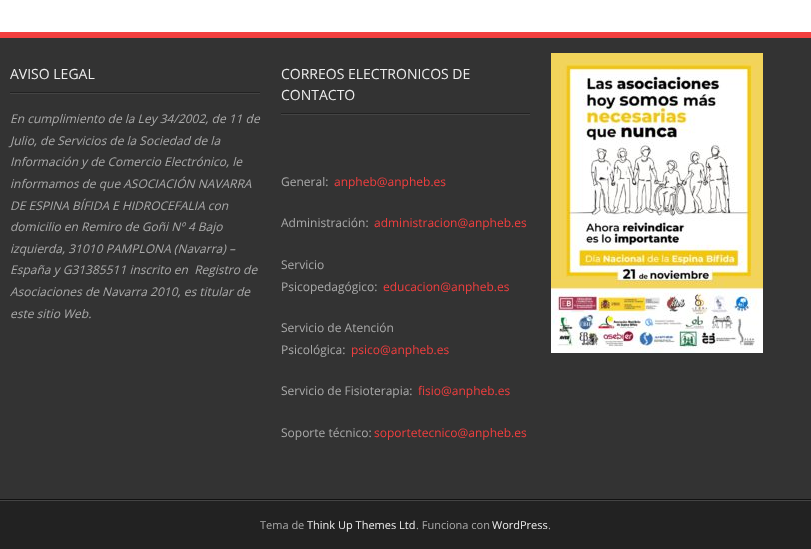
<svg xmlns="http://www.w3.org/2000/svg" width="811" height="549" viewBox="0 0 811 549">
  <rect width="100%" height="100%" fill="#ffffff"/>
  <rect x="0" y="38" width="811" height="461" fill="#333333"/>
  <rect x="0" y="32" width="811" height="6" fill="#f33f3f"/>
  <rect x="0" y="499" width="811" height="1" fill="#111111"/>
  <rect x="10" y="93" width="250" height="1" fill="#444444"/>
  <rect x="10" y="92" width="250" height="1" fill="#222222"/>
  <text x="10" y="79" font-family="Open Sans" font-size="14" fill="#eeeeee">AVISO LEGAL</text>
  <text x="10" y="123" font-family="Open Sans" font-size="12" font-style="italic" fill="#aaaaaa">En cumplimiento de la Ley 34/2002, de 11 de</text>
  <text x="10" y="145" font-family="Open Sans" font-size="12" font-style="italic" fill="#aaaaaa">Julio, de Servicios de la Sociedad de la</text>
  <text x="10" y="166" font-family="Open Sans" font-size="12" font-style="italic" fill="#aaaaaa">Información y de Comercio Electrónico, le</text>
  <text x="10" y="188" font-family="Open Sans" font-size="12" font-style="italic" fill="#aaaaaa">informamos de que ASOCIACIÓN NAVARRA</text>
  <text x="10" y="210" font-family="Open Sans" font-size="12" font-style="italic" fill="#aaaaaa">DE ESPINA BÍFIDA E HIDROCEFALIA con</text>
  <text x="10" y="231" font-family="Open Sans" font-size="12" font-style="italic" fill="#aaaaaa">domicilio en Remiro de Goñi Nº 4 Bajo</text>
  <text x="10" y="253" font-family="Open Sans" font-size="12" font-style="italic" fill="#aaaaaa">izquierda, 31010 PAMPLONA (Navarra) –</text>
  <text x="10" y="274" font-family="Open Sans" font-size="12" font-style="italic" fill="#aaaaaa" xml:space="preserve">España y G31385511 inscrito en  Registro de</text>
  <text x="10" y="296" font-family="Open Sans" font-size="12" font-style="italic" fill="#aaaaaa">Asociaciones de Navarra 2010, es titular de</text>
  <text x="10" y="318" font-family="Open Sans" font-size="12" font-style="italic" fill="#aaaaaa">este sitio Web.</text>
  <rect x="281" y="114" width="249" height="1" fill="#444444"/>
  <rect x="281" y="113" width="249" height="1" fill="#222222"/>
  <text x="281" y="79" font-family="Open Sans" font-size="14" fill="#eeeeee">CORREOS ELECTRONICOS DE</text>
  <text x="281" y="100" font-family="Open Sans" font-size="14" fill="#eeeeee">CONTACTO</text>
  <text x="281" y="186" font-family="Open Sans" font-size="12" fill="#aaaaaa">General:</text>
  <text x="334" y="186" font-family="Open Sans" font-size="12" fill="#f33f3f">anpheb@anpheb.es</text>
  <text x="281" y="227" font-family="Open Sans" font-size="12" fill="#aaaaaa">Administración:</text>
  <text x="374" y="227" font-family="Open Sans" font-size="12" fill="#f33f3f">administracion@anpheb.es</text>
  <text x="281" y="269" font-family="Open Sans" font-size="12" fill="#aaaaaa">Servicio</text>
  <text x="281" y="291" font-family="Open Sans" font-size="12" fill="#aaaaaa">Psicopedagógico:</text>
  <text x="383" y="291" font-family="Open Sans" font-size="12" fill="#f33f3f">educacion@anpheb.es</text>
  <text x="281" y="332" font-family="Open Sans" font-size="12" fill="#aaaaaa">Servicio de Atención</text>
  <text x="281" y="354" font-family="Open Sans" font-size="12" fill="#aaaaaa">Psicológica:</text>
  <text x="351" y="354" font-family="Open Sans" font-size="12" fill="#f33f3f">psico@anpheb.es</text>
  <text x="281" y="395" font-family="Open Sans" font-size="12" fill="#aaaaaa">Servicio de Fisioterapia:</text>
  <text x="418" y="395" font-family="Open Sans" font-size="12" fill="#f33f3f">fisio@anpheb.es</text>
  <text x="281" y="437" font-family="Open Sans" font-size="12" fill="#aaaaaa">Soporte técnico:</text>
  <text x="374" y="437" font-family="Open Sans" font-size="12" fill="#f33f3f">soportetecnico@anpheb.es</text>
  <image x="551" y="53" width="212" height="300" href="img1.png"/>
  <rect x="0" y="501" width="811" height="48" fill="#222222"/>
  <rect x="0" y="500" width="811" height="1" fill="#444444"/>
  <text x="260" y="529" font-family="Open Sans" font-size="11" fill="#aaaaaa">Tema de</text>
  <text x="307" y="529" font-family="Open Sans" font-size="11" fill="#eeeeee">Think Up Themes Ltd</text>
  <text x="416" y="529" font-family="Open Sans" font-size="11" fill="#aaaaaa">. Funciona con</text>
  <text x="492" y="529" font-family="Open Sans" font-size="11" fill="#eeeeee">WordPress</text>
  <text x="548" y="529" font-family="Open Sans" font-size="11" fill="#aaaaaa">.</text>
</svg>
